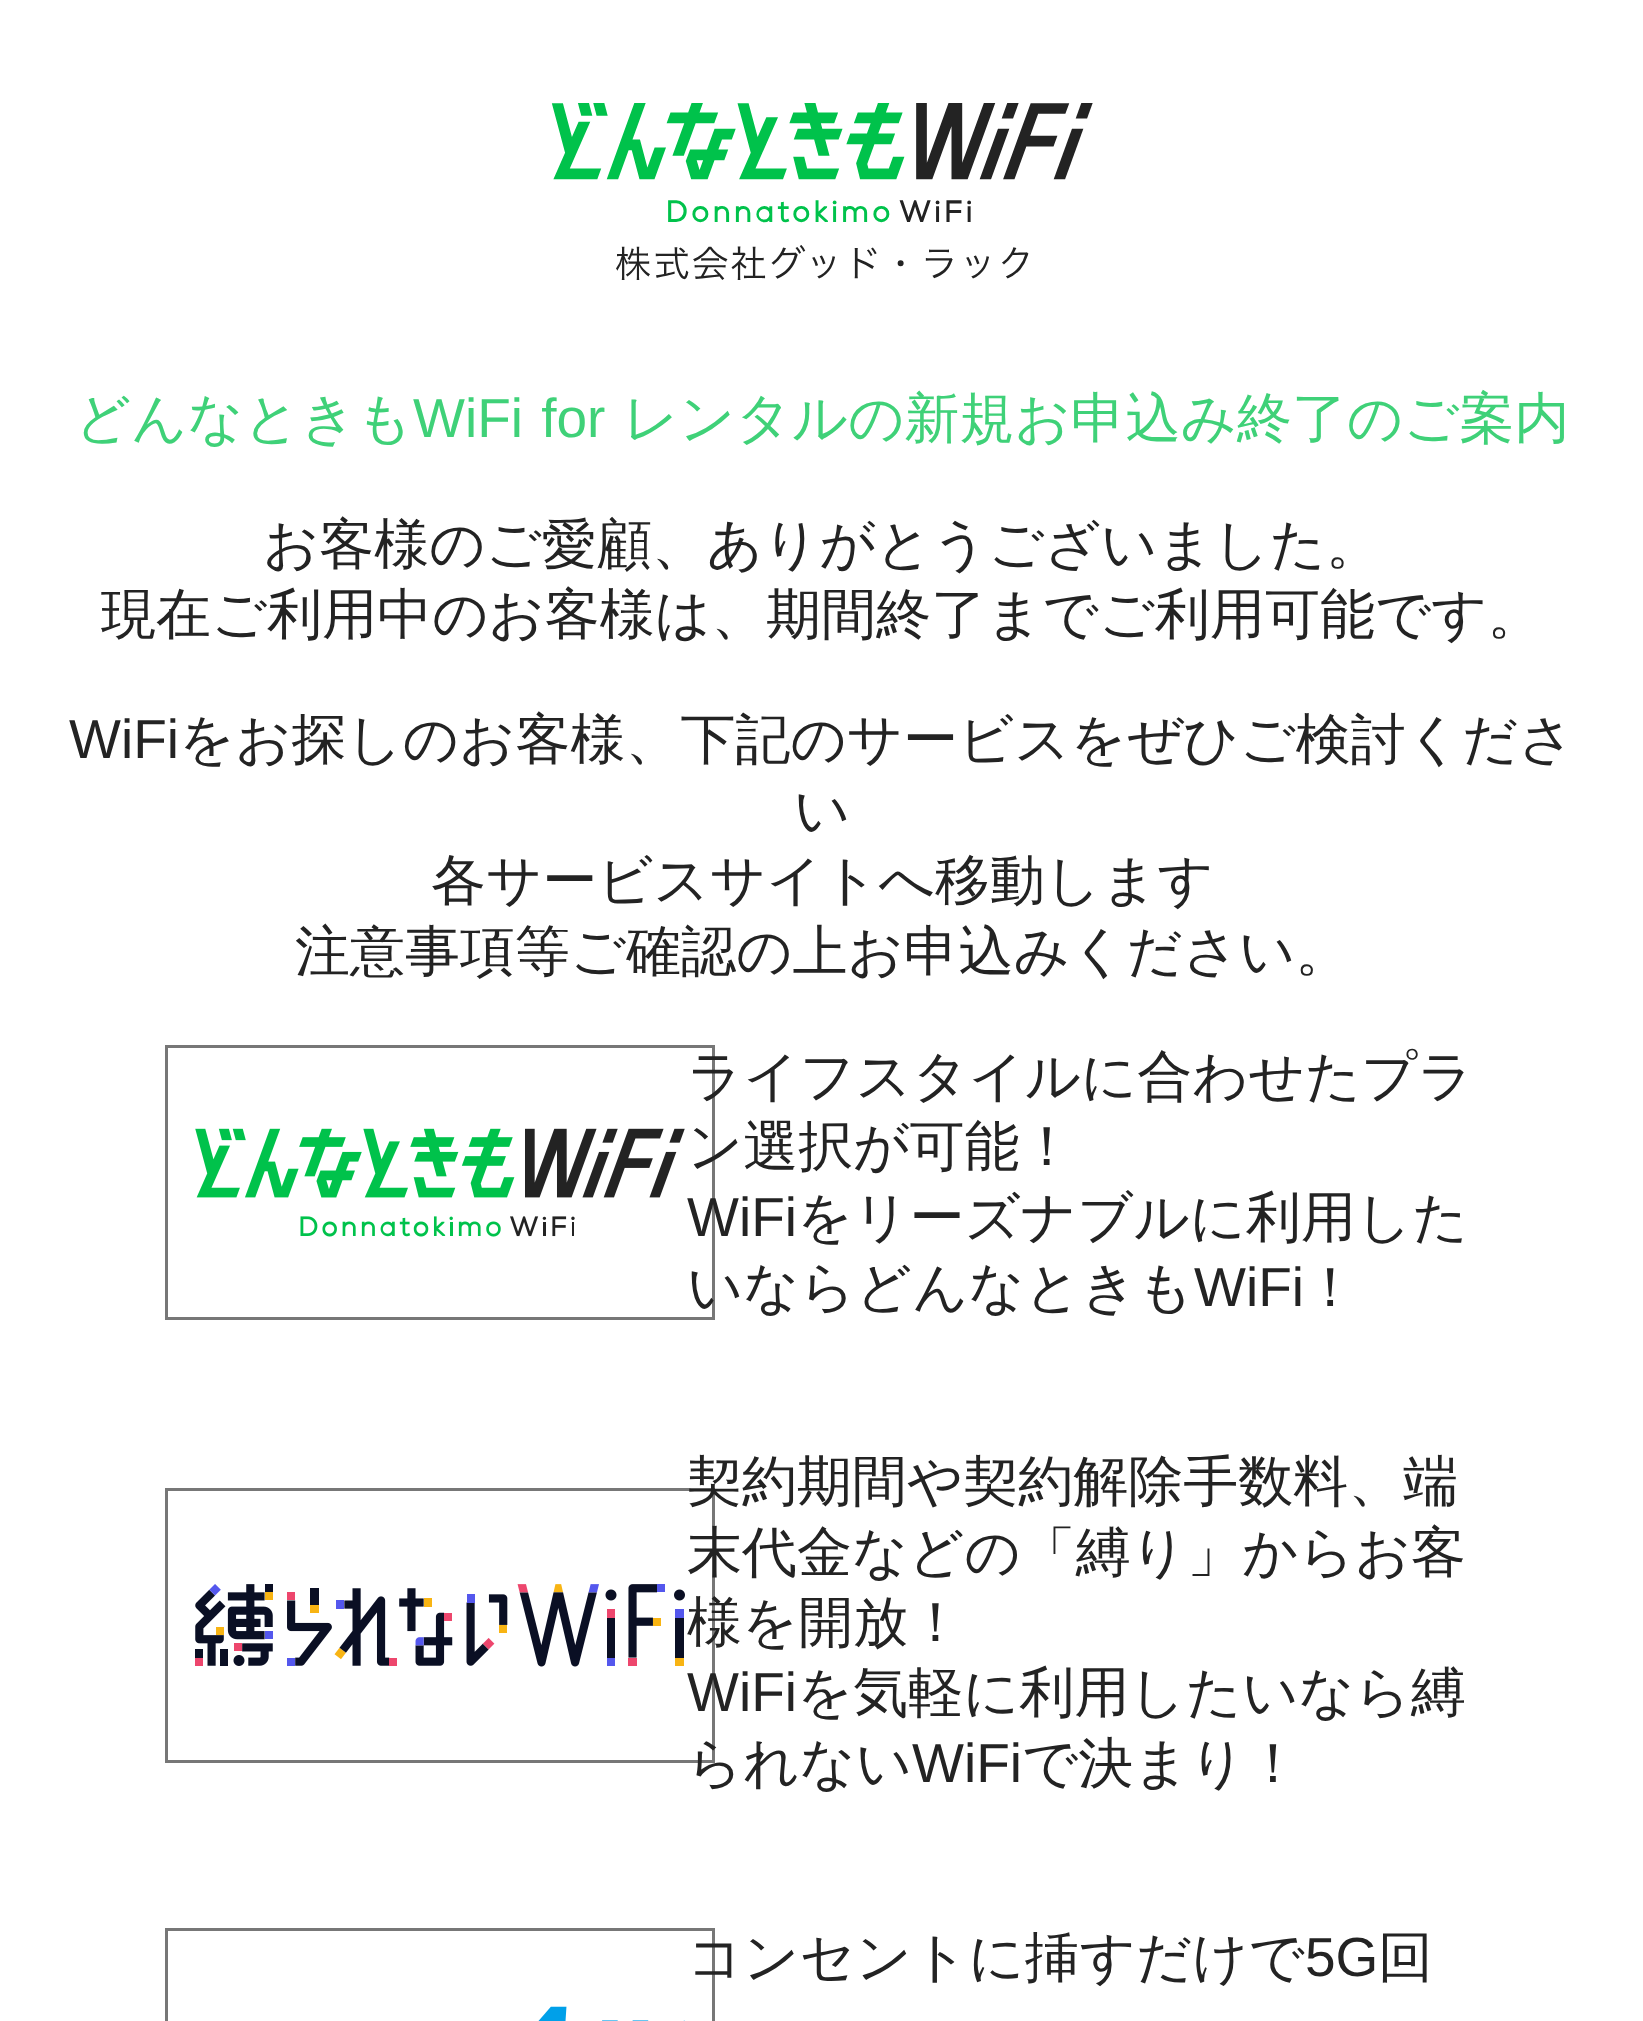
<svg xmlns="http://www.w3.org/2000/svg" width="1643" height="2021">
<rect width="100%" height="100%" fill="#fff"/>
<image x="551" y="103" width="542" height="177" href="media/1.png"/>
<text x="75" y="437" style="font-family:WenQuanYi Zen Hei;font-size:55px;font-weight:500;fill:#3fd178">どんなときも</text>
<text x="413" y="437" word-spacing="3" style="font-family:Liberation Sans;font-size:55px;fill:#3fd178">WiFi for</text>
<text x="623" y="437" style="font-family:WenQuanYi Zen Hei;font-size:55px;font-weight:500;fill:#3fd178">レンタルの新規お申込み終了のご案内</text>
<text x="263" y="563" style="font-family:WenQuanYi Zen Hei;font-size:55px;font-weight:500;fill:#232323">お客様のご愛顧、ありがとうございました。</text>
<text x="101" y="633" style="font-family:WenQuanYi Zen Hei;font-size:55px;font-weight:500;fill:#232323">現在ご利用中のお客様は、期間終了までご利用可能です。</text>
<text x="69" y="758" style="font-family:Liberation Sans;font-size:55px;fill:#232323">WiFi</text>
<text x="179" y="758" style="font-family:WenQuanYi Zen Hei;font-size:55px;font-weight:500;fill:#232323">をお探しのお客様、下記のサービスをぜひご検討くださ</text>
<text x="794" y="829" style="font-family:WenQuanYi Zen Hei;font-size:55px;font-weight:500;fill:#232323">い</text>
<text x="431" y="899" style="font-family:WenQuanYi Zen Hei;font-size:55px;font-weight:500;fill:#232323">各サービスサイトへ移動します</text>
<text x="295" y="970" style="font-family:WenQuanYi Zen Hei;font-size:55px;font-weight:500;fill:#232323">注意事項等ご確認の上お申込みください。</text>
<rect x="166.5" y="1046.5" width="547" height="272" fill="none" stroke="#777" stroke-width="3"/>
<image x="195" y="1128" width="490" height="109" href="media/2.png"/>
<text x="687" y="1095" style="font-family:WenQuanYi Zen Hei;font-size:55px;font-weight:500;fill:#232323">ライフスタイルに合わせたプラ</text>
<text x="687" y="1165" style="font-family:WenQuanYi Zen Hei;font-size:55px;font-weight:500;fill:#232323">ン選択が可能！</text>
<text x="687" y="1236" style="font-family:Liberation Sans;font-size:55px;fill:#232323">WiFi</text>
<text x="797" y="1236" style="font-family:WenQuanYi Zen Hei;font-size:55px;font-weight:500;fill:#232323">をリーズナブルに利用した</text>
<text x="687" y="1306" style="font-family:WenQuanYi Zen Hei;font-size:55px;font-weight:500;fill:#232323">いならどんなときも</text>
<text x="1194" y="1306" style="font-family:Liberation Sans;font-size:55px;fill:#232323">WiFi</text>
<text x="1303" y="1306" style="font-family:WenQuanYi Zen Hei;font-size:55px;font-weight:500;fill:#232323">！</text>
<rect x="166.5" y="1489.5" width="547" height="272" fill="none" stroke="#777" stroke-width="3"/>
<image x="195" y="1584" width="490" height="83" href="media/3.png"/>
<text x="687" y="1500" style="font-family:WenQuanYi Zen Hei;font-size:55px;font-weight:500;fill:#232323">契約期間や契約解除手数料、端</text>
<text x="687" y="1571" style="font-family:WenQuanYi Zen Hei;font-size:55px;font-weight:500;fill:#232323">末代金などの「縛り」からお客</text>
<text x="687" y="1641" style="font-family:WenQuanYi Zen Hei;font-size:55px;font-weight:500;fill:#232323">様を開放！</text>
<text x="687" y="1711" style="font-family:Liberation Sans;font-size:55px;fill:#232323">WiFi</text>
<text x="797" y="1711" style="font-family:WenQuanYi Zen Hei;font-size:55px;font-weight:500;fill:#232323">を気軽に利用したいなら縛</text>
<text x="687" y="1782" style="font-family:WenQuanYi Zen Hei;font-size:55px;font-weight:500;fill:#232323">られない</text>
<text x="912" y="1782" style="font-family:Liberation Sans;font-size:55px;fill:#232323">WiFi</text>
<text x="1022" y="1782" style="font-family:WenQuanYi Zen Hei;font-size:55px;font-weight:500;fill:#232323">で決まり！</text>
<rect x="166.5" y="1929.5" width="547" height="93" fill="none" stroke="#777" stroke-width="3"/>
<image x="538" y="2006" width="147" height="15" href="media/4.png"/>
<text x="687" y="1976" style="font-family:WenQuanYi Zen Hei;font-size:55px;font-weight:500;fill:#232323">コンセントに挿すだけで</text>
<text x="1305" y="1976" style="font-family:Liberation Sans;font-size:55px;fill:#232323">5G</text>
<text x="1378" y="1976" style="font-family:WenQuanYi Zen Hei;font-size:55px;font-weight:500;fill:#232323">回</text>
</svg>
